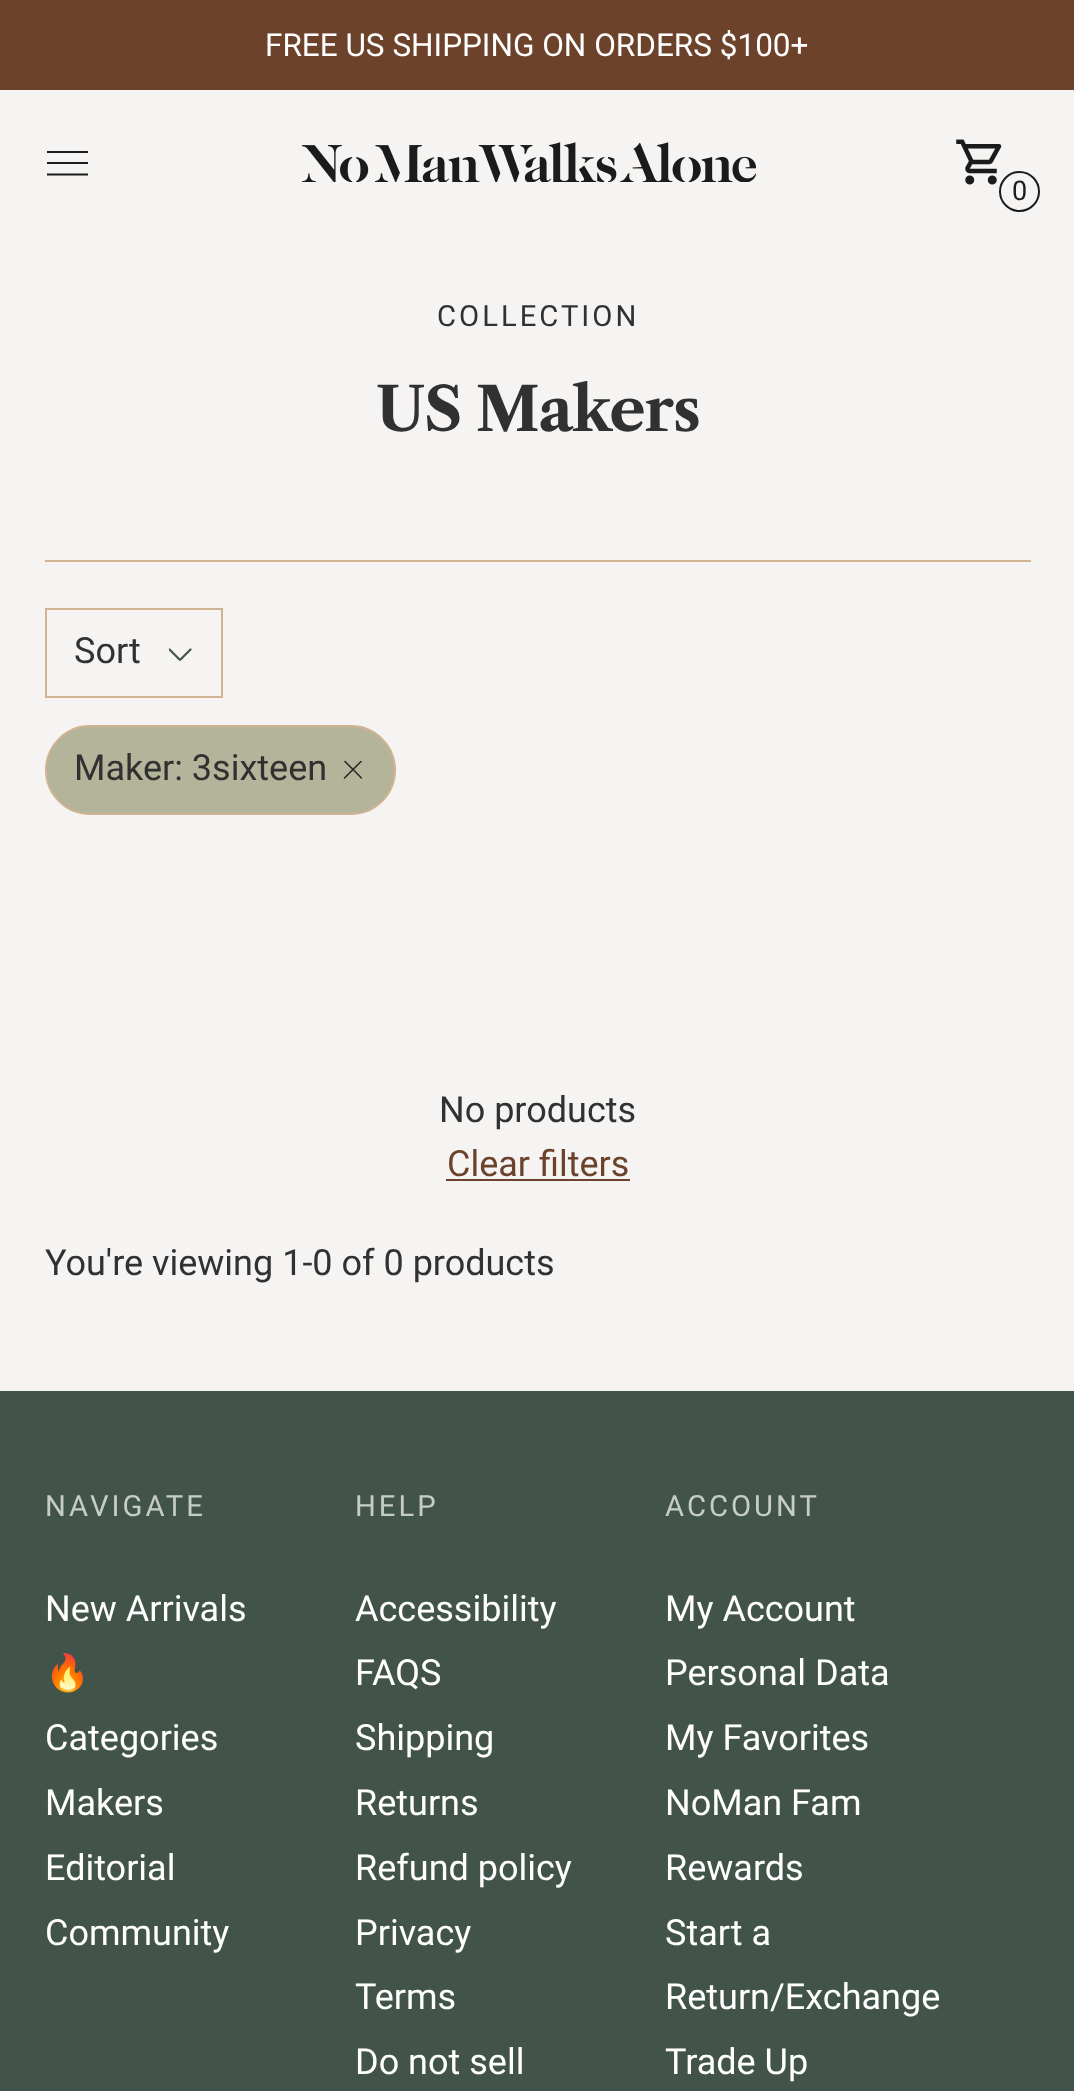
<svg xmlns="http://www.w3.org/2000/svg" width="1074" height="2091">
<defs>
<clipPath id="clip1"><rect x="169" y="644" width="25" height="24"/></clipPath>
<clipPath id="clip2"><rect x="342" y="761" width="20" height="20"/></clipPath>
</defs>
<rect width="100%" height="100%" fill="#f5f4f3"/>
<rect width="1074" height="90" fill="#6c422a"/>
<text x="265" y="56" style="font-family:Roboto;font-size:31.5px;fill:#fff">FREE US SHIPPING ON ORDERS $100+</text>
<path d="M47 152h41m-41 11h41m-41 11.5h41" fill="none" stroke="#1b1b1b" stroke-width="2.2"/>
<image x="302" y="142" width="454" height="40" href="media/1.png"/>
<image x="956" y="139" width="46" height="46" href="media/2.png"/>
<circle cx="1019.5" cy="191.5" r="19.5" fill="none" stroke="#1b1b1b" stroke-width="2"/>
<text x="1012" y="200" style="font-family:Roboto;font-size:27px;fill:#1b1b1b">0</text>
<text x="437" y="326" style="font-family:Roboto;font-size:29.25px;letter-spacing:3px;fill:#313131">COLLECTION</text>
<text x="376" y="431" style="font-family:Libre Caslon Text;font-size:60.75px;font-weight:bold;letter-spacing:-1.25px;fill:#313131">US Makers</text>
<rect x="45" y="560" width="986" height="2" fill="#d0b390"/>
<rect x="46" y="609" width="176" height="88" fill="none" stroke="#d0b390" stroke-width="2"/>
<text x="74" y="663" style="font-family:Roboto;font-size:36px;fill:#313131">Sort</text>
<g clip-path="url(#clip1)">
<path d="M169.5 649.5l8.5 8.5c2.5 2.5 1.5 2.5 4 0l8.5-8.5" fill="none" stroke="#42544a" stroke-width="2.2" stroke-linecap="round" stroke-linejoin="round"/>
</g>
<rect x="46" y="726" width="349" height="88" rx="44" fill="#b3b499" stroke="#d0b390" stroke-width="2"/>
<text x="74" y="780" style="font-family:Roboto;font-size:36px;fill:#313131">Maker: 3sixteen</text>
<g clip-path="url(#clip2)">
<path d="M361.5 761l-17 17m0-17l17 17" fill="none" stroke="#202924" stroke-width="1.5" stroke-linecap="round" stroke-linejoin="round"/>
</g>
<text x="439" y="1122" style="font-family:Roboto;font-size:36px;fill:#313131">No products</text>
<text x="447" y="1176" style="font-family:Roboto;font-size:36px;fill:#6c422a">Clear filters</text>
<rect x="446" y="1179" width="184" height="2" fill="#6c422a"/>
<text x="45" y="1275" style="font-family:Roboto;font-size:36px;fill:#313131">You're viewing 1-0 of 0 products</text>
<rect y="1391" width="1074" height="700" fill="#42544a"/>
<text x="45" y="1516" style="font-family:Roboto;font-size:29.25px;letter-spacing:3px;fill:#c6ccc9">NAVIGATE</text>
<text x="45" y="1621" style="font-family:Roboto;font-size:36px;fill:#fff">New Arrivals</text>
<text x="45" y="1685" style="font-family:Noto Color Emoji;font-size:36px;fill:#fff">🔥</text>
<text x="45" y="1750" style="font-family:Roboto;font-size:36px;fill:#fff">Categories</text>
<text x="45" y="1815" style="font-family:Roboto;font-size:36px;fill:#fff">Makers</text>
<text x="45" y="1880" style="font-family:Roboto;font-size:36px;fill:#fff">Editorial</text>
<text x="45" y="1945" style="font-family:Roboto;font-size:36px;fill:#fff">Community</text>
<text x="355" y="1516" style="font-family:Roboto;font-size:29.25px;letter-spacing:3px;fill:#c6ccc9">HELP</text>
<text x="355" y="1621" style="font-family:Roboto;font-size:36px;fill:#fff">Accessibility</text>
<text x="355" y="1685" style="font-family:Roboto;font-size:36px;fill:#fff">FAQS</text>
<text x="355" y="1750" style="font-family:Roboto;font-size:36px;fill:#fff">Shipping</text>
<text x="355" y="1815" style="font-family:Roboto;font-size:36px;fill:#fff">Returns</text>
<text x="355" y="1880" style="font-family:Roboto;font-size:36px;fill:#fff">Refund policy</text>
<text x="355" y="1945" style="font-family:Roboto;font-size:36px;fill:#fff">Privacy</text>
<text x="355" y="2009" style="font-family:Roboto;font-size:36px;fill:#fff">Terms</text>
<text x="355" y="2074" style="font-family:Roboto;font-size:36px;fill:#fff">Do not sell</text>
<text x="665" y="1516" style="font-family:Roboto;font-size:29.25px;letter-spacing:3px;fill:#c6ccc9">ACCOUNT</text>
<text x="665" y="1621" style="font-family:Roboto;font-size:36px;fill:#fff">My Account</text>
<text x="665" y="1685" style="font-family:Roboto;font-size:36px;fill:#fff">Personal Data</text>
<text x="665" y="1750" style="font-family:Roboto;font-size:36px;fill:#fff">My Favorites</text>
<text x="665" y="1815" style="font-family:Roboto;font-size:36px;fill:#fff">NoMan Fam</text>
<text x="665" y="1880" style="font-family:Roboto;font-size:36px;fill:#fff">Rewards</text>
<text x="665" y="1945" style="font-family:Roboto;font-size:36px;fill:#fff">Start a</text>
<text x="665" y="2009" style="font-family:Roboto;font-size:36px;fill:#fff">Return/Exchange</text>
<text x="665" y="2074" style="font-family:Roboto;font-size:36px;fill:#fff">Trade Up</text>
</svg>
